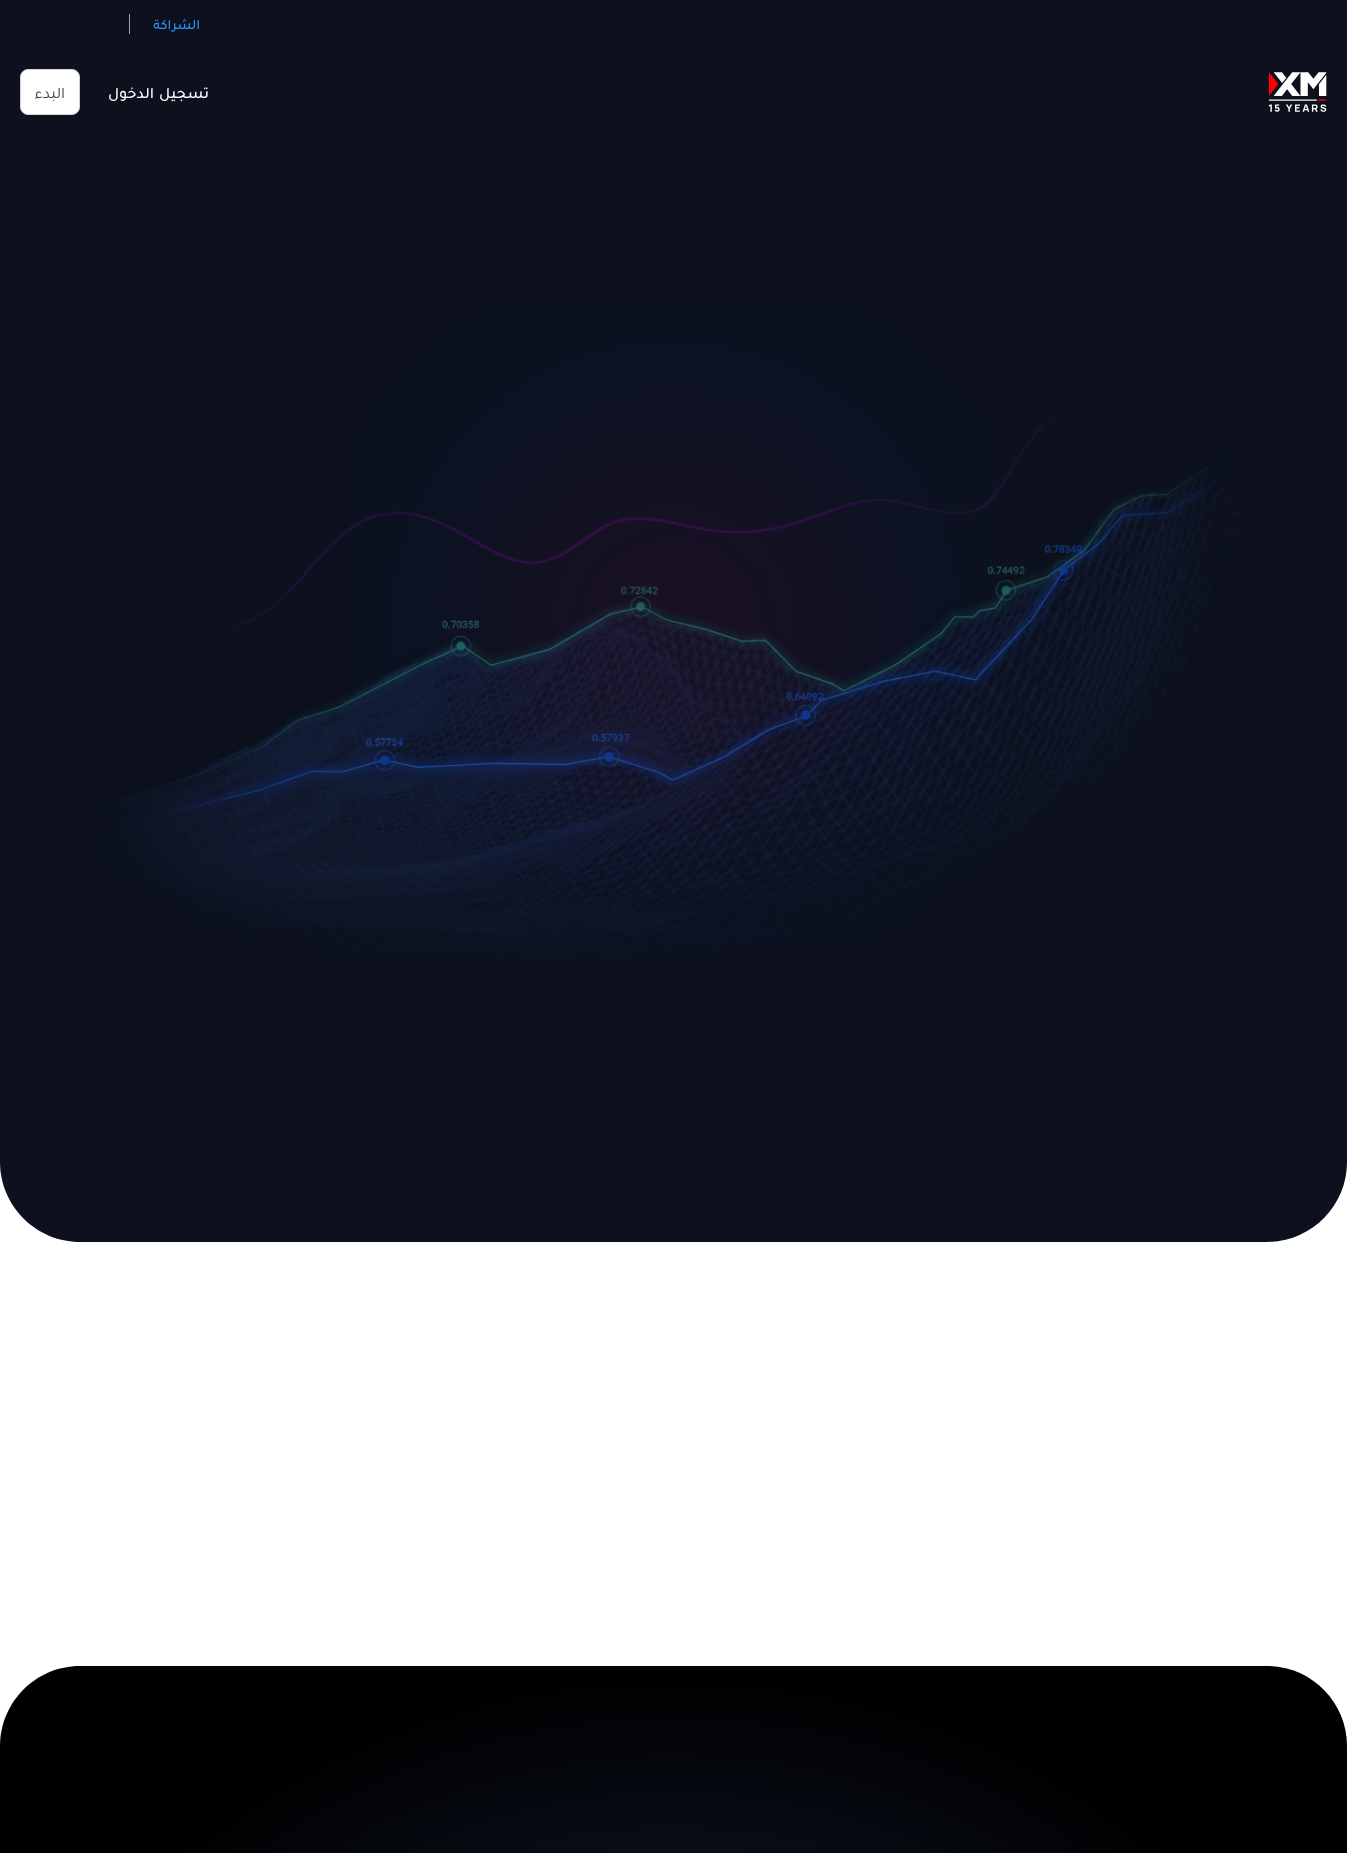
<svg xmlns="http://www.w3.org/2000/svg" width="1347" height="1853">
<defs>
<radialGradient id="g1" gradientUnits="userSpaceOnUse" cx="674" cy="627" r="750"><stop offset="0.1" stop-color="#171122"/><stop offset="0.34" stop-color="#0c1222"/><stop offset="0.52" stop-color="#0c111d"/></radialGradient>
<radialGradient id="g2" gradientUnits="userSpaceOnUse" cx="0" cy="0" r="1" gradientTransform="matrix(674 0 0 556 674 2222)"><stop offset="0" stop-color="#172543"/><stop offset="1" stop-color="#000"/></radialGradient>
</defs>
<rect width="100%" height="100%" fill="#fff"/>
<rect width="1347" height="136" fill="#0c111d"/>
<rect x="129" y="14" width="1" height="20" fill="#98a2b3"/>
<text x="200" y="29" style="font-family:Tajawal;font-size:14px;font-weight:500;direction:rtl;fill:#2e90fa">الشراكة</text>
<image x="1269" y="72" width="58" height="40" href="media/1.png"/>
<text x="209" y="98" style="font-family:Tajawal;font-size:16px;font-weight:500;direction:rtl;fill:#fff">تسجيل</text>
<text x="154" y="98" style="font-family:Tajawal;font-size:16px;font-weight:500;direction:rtl;fill:#fff">الدخول</text>
<rect x="20.5" y="69.5" width="59" height="45" rx="7.5" fill="#fff" stroke="#d0d5dd"/>
<text x="65" y="98" style="font-family:Tajawal;font-size:16px;direction:rtl;fill:#344054">البدء</text>
<path d="M0 136h1347v1026c0 44-36 80-80 80h-1187c-44 0-80-36-80-80z" fill="#0c111d"/>
<rect x="350" y="303" width="648" height="648" fill="url(#g1)"/>
<image x="70" y="474" width="1192" height="518" href="media/3.png"/>
<image x="100" y="416" width="1133" height="399" href="media/2.png"/>
<path d="M80 1666h1187c44 0 80 36 80 80v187h-1347v-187c0-44 36-80 80-80z" fill="url(#g2)"/>
</svg>
